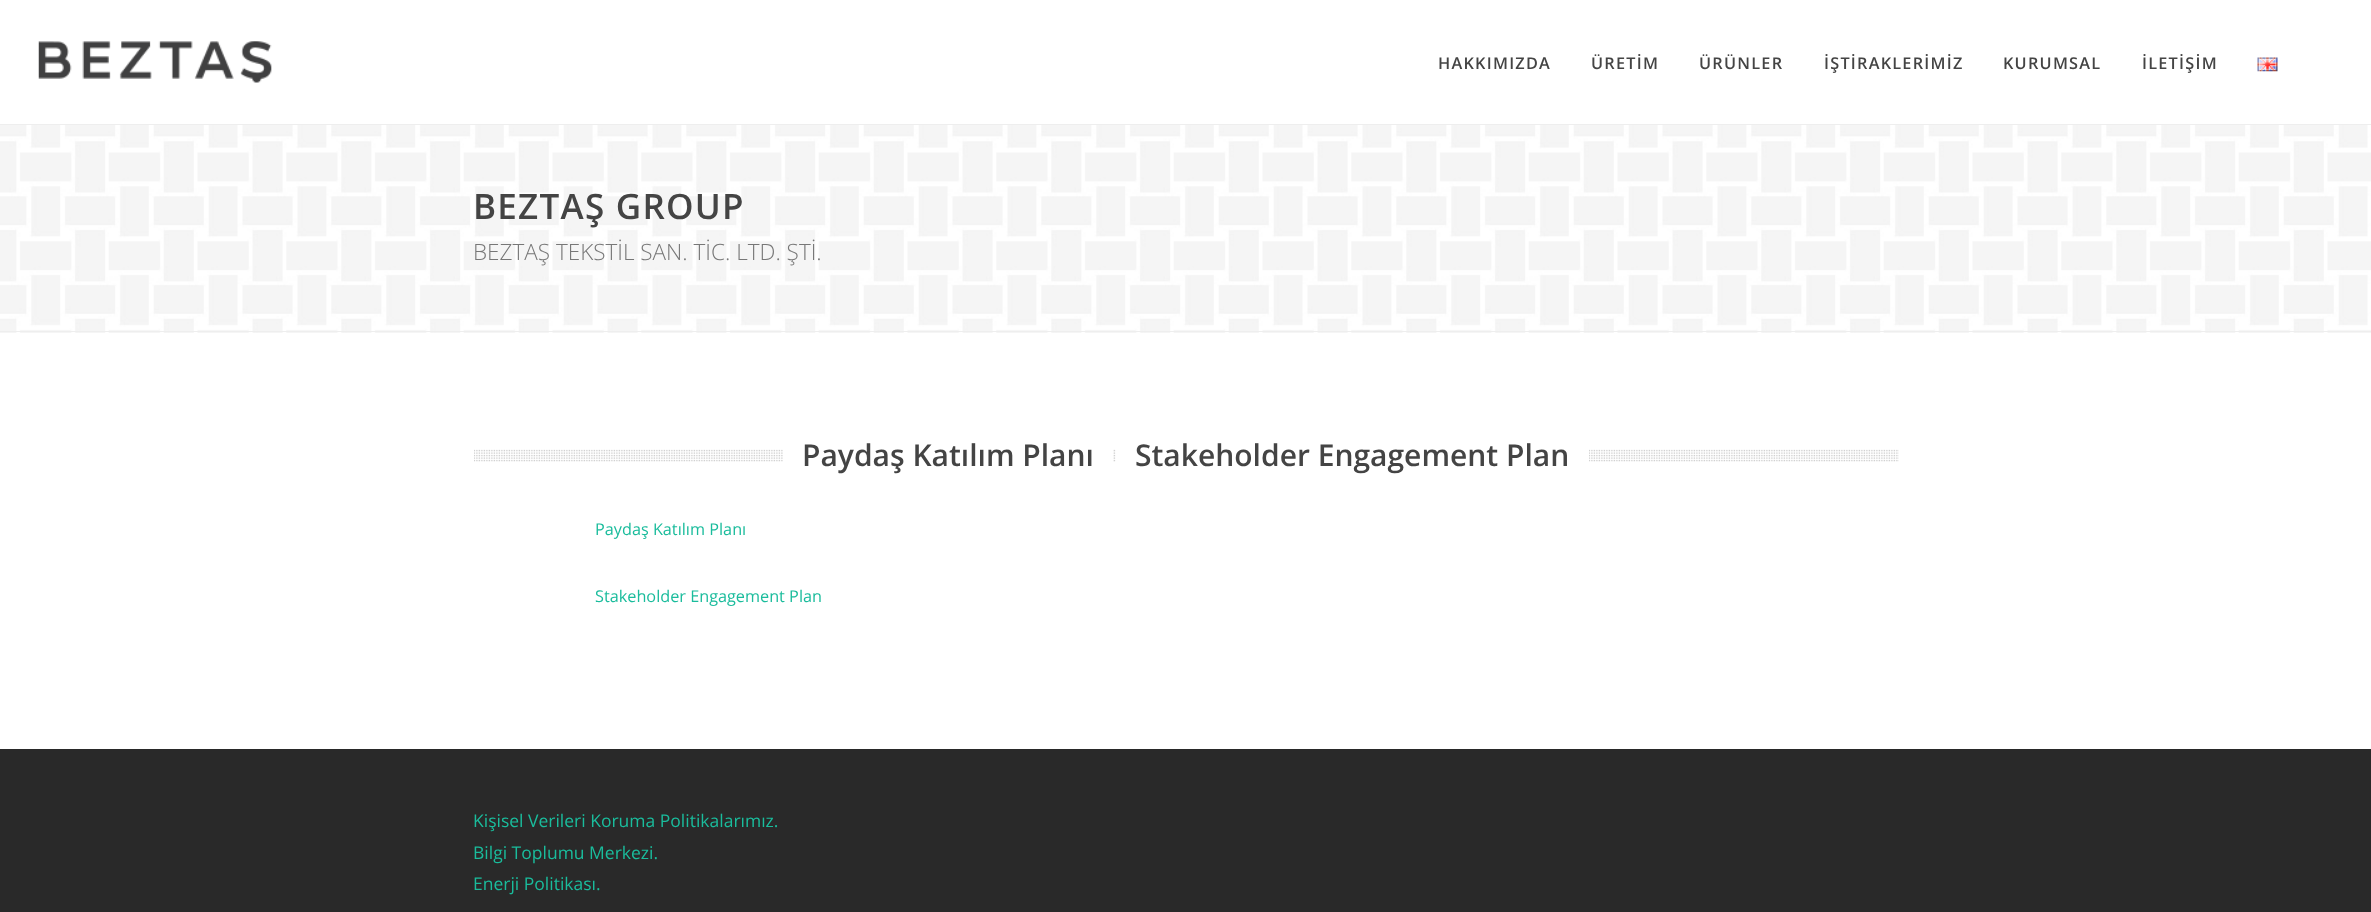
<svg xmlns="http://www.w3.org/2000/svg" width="2371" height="912">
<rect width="100%" height="100%" fill="#fff"/>
<rect y="124" width="2371" height="1" fill="#eee"/>
<image x="38" y="41" width="234" height="42" href="media/1.png"/>
<text x="1438" y="69" style="font-family:Open Sans;font-size:16.25px;font-weight:600;letter-spacing:1.25px;fill:#444">HAKKIMIZDA</text>
<text x="1591" y="69" style="font-family:Open Sans;font-size:16.25px;font-weight:600;letter-spacing:1.25px;fill:#444">ÜRETİM</text>
<text x="1699" y="69" style="font-family:Open Sans;font-size:16.25px;font-weight:600;letter-spacing:1.25px;fill:#444">ÜRÜNLER</text>
<text x="1824" y="69" style="font-family:Open Sans;font-size:16.25px;font-weight:600;letter-spacing:1.25px;fill:#444">İŞTİRAKLERİMİZ</text>
<text x="2003" y="69" style="font-family:Open Sans;font-size:16.25px;font-weight:600;letter-spacing:1.25px;fill:#444">KURUMSAL</text>
<text x="2142" y="69" style="font-family:Open Sans;font-size:16.25px;font-weight:600;letter-spacing:1.25px;fill:#444">İLETİŞİM</text>
<image x="2257" y="57" width="21" height="15" href="media/2.png"/>
<image x="0" y="125" width="2371" height="208" href="media/3.png"/>
<rect y="331" width="2371" height="1" fill="#eee"/>
<text x="473" y="219" style="font-family:Open Sans;font-size:35px;font-weight:600;letter-spacing:1.25px;fill:#444">BEZTAŞ GROUP</text>
<text x="473" y="260" style="font-family:Open Sans;font-size:22.5px;font-weight:300;fill:#777">BEZTAŞ TEKSTİL SAN. TİC. LTD. ŞTİ.</text>
<image x="474" y="449" width="1425" height="13" href="media/4.png"/>
<rect x="783" y="449" width="330" height="13" fill="#fff"/>
<text x="802" y="466" style="font-family:Open Sans;font-size:30px;font-weight:600;fill:#444">Paydaş Katılım Planı</text>
<rect x="1116" y="449" width="473" height="13" fill="#fff"/>
<text x="1135" y="466" style="font-family:Open Sans;font-size:30px;font-weight:600;fill:#444">Stakeholder Engagement Plan</text>
<text x="595" y="535" style="font-family:Open Sans;font-size:16.25px;fill:#1abc9c">Paydaş Katılım Planı</text>
<text x="595" y="602" style="font-family:Open Sans;font-size:16.25px;fill:#1abc9c">Stakeholder Engagement Plan</text>
<rect y="749" width="2371" height="163" fill="#292929"/>
<text x="473" y="827" style="font-family:Open Sans;font-size:17.5px;fill:#1abc9c">Kişisel Verileri Koruma Politikalarımız.</text>
<text x="473" y="859" style="font-family:Open Sans;font-size:17.5px;fill:#1abc9c">Bilgi Toplumu Merkezi.</text>
<text x="473" y="890" style="font-family:Open Sans;font-size:17.5px;fill:#1abc9c">Enerji Politikası.</text>
</svg>
